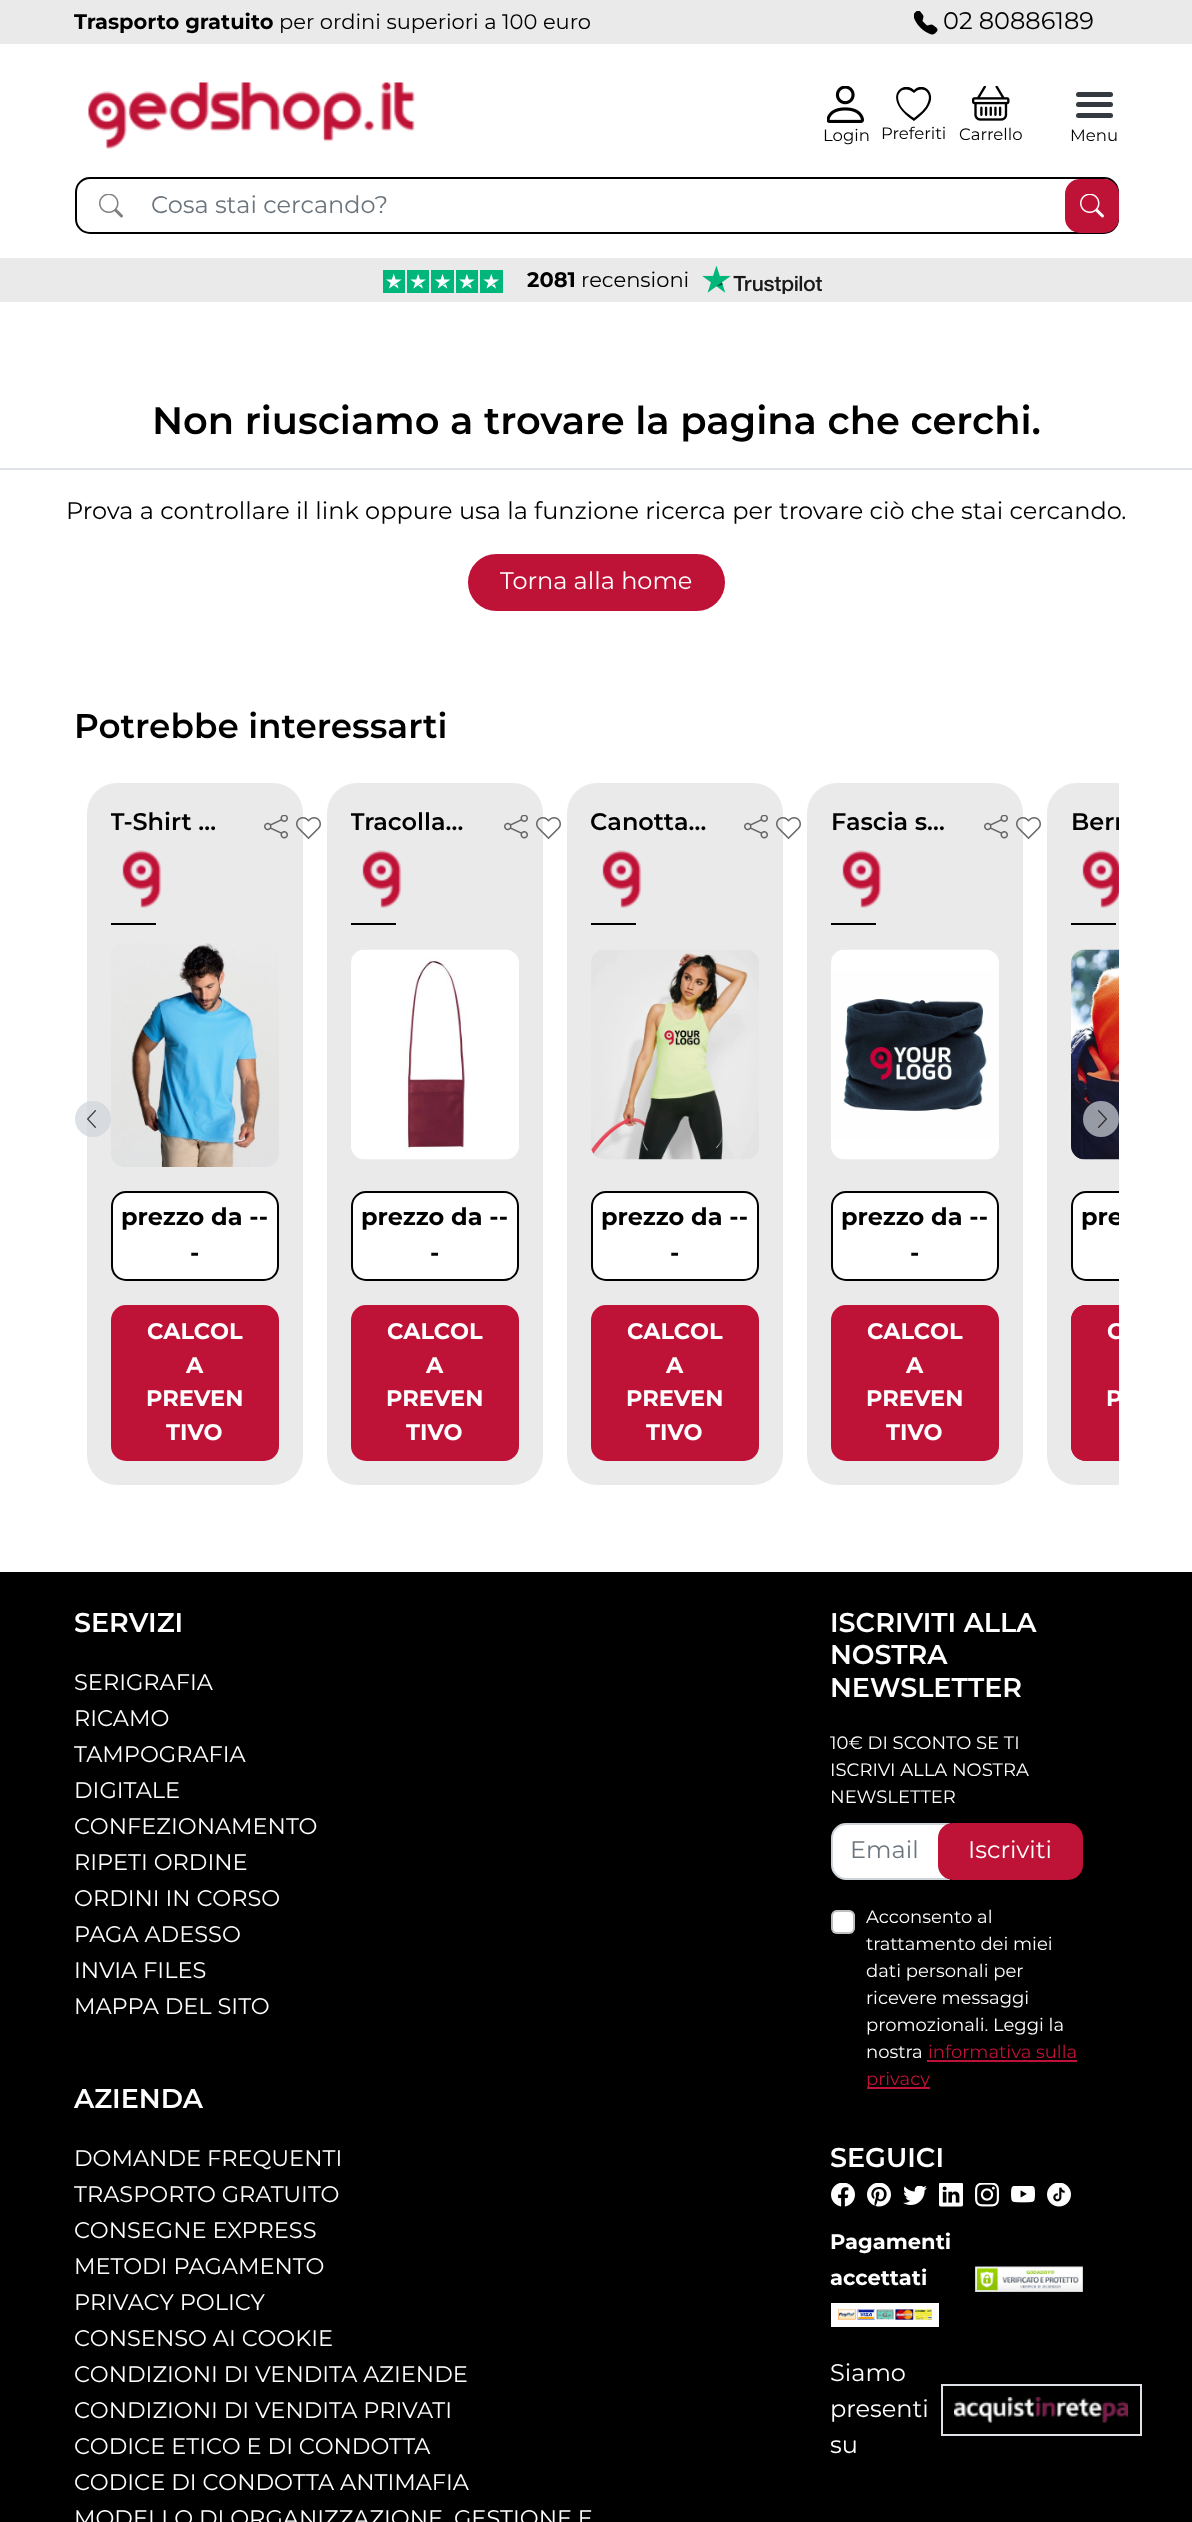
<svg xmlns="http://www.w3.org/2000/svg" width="1192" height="2522">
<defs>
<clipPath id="clip1"><rect x="896" y="87" width="36" height="35"/></clipPath>
<clipPath id="clip2"><rect x="111" y="807" width="117" height="29"/></clipPath>
<clipPath id="clip3"><rect x="351" y="807" width="117" height="29"/></clipPath>
<clipPath id="clip4"><rect x="1071" y="807" width="48" height="29"/></clipPath>
<clipPath id="clip5"><rect x="75" y="747" width="1044" height="744"/></clipPath>
</defs>
<rect width="100%" height="100%" fill="#fff"/>
<rect width="1192" height="44" fill="#ebeaea"/>
<text x="74" y="29" style="font-family:Montserrat;font-size:21px;font-weight:bold;fill:#000">Trasporto gratuito</text>
<text x="279" y="29" style="font-family:Montserrat;font-size:21px;fill:#000">per ordini superiori a 100 euro</text>
<image x="914" y="11" width="24" height="24" href="media/1.png"/>
<text x="943" y="29" style="font-family:Montserrat;font-size:24px;fill:#000">02 80886189</text>
<image x="88" y="82" width="327" height="67" href="media/2.png"/>
<image x="827" y="86" width="37" height="37" href="media/3.png"/>
<text x="823" y="141" style="font-family:Montserrat;font-size:16.5px;fill:#000">Login</text>
<g clip-path="url(#clip1)">
<path d="M914 93c-9-8-19-1-15 9c2 7 9 12 15 16c5-4 12-9 14-16c4-10-6-17-14-9zm0 28c-34-23-11-42 0-31c10-11 33 8 0 31z" fill="#000"/>
</g>
<text x="881" y="139" style="font-family:Montserrat;font-size:16.5px;fill:#000">Preferiti</text>
<image x="972" y="86" width="38" height="35" href="media/4.png"/>
<text x="959" y="140" style="font-family:Montserrat;font-size:16.5px;fill:#000">Carrello</text>
<rect x="1076" y="92" width="37" height="5" rx="2.5" fill="#343a40"/>
<rect x="1076" y="102" width="37" height="5" rx="2.5" fill="#343a40"/>
<rect x="1076" y="113" width="37" height="5" rx="2.5" fill="#343a40"/>
<text x="1070" y="141" style="font-family:Montserrat;font-size:16.5px;fill:#000">Menu</text>
<image x="99" y="194" width="24" height="24" href="media/5.png"/>
<rect x="76" y="178" width="1042" height="55" rx="14" fill="none" stroke="#000" stroke-width="2"/>
<text x="151" y="213" style="font-family:Montserrat;font-size:24px;fill:#6c757d">Cosa stai cercando?</text>
<rect x="1065" y="179" width="54" height="54" rx="15" fill="#bf1237"/>
<image x="1080" y="194" width="24" height="24" href="media/6.png"/>
<rect y="258" width="1192" height="44" fill="#ebeaea"/>
<image x="383" y="270" width="120" height="23" href="media/7.png"/>
<text x="527" y="287" style="font-family:Montserrat;font-size:21px;font-weight:bold;fill:#000">2081</text>
<text x="581" y="287" style="font-family:Montserrat;font-size:21px;fill:#000">recensioni</text>
<image x="702" y="266" width="120" height="28" href="media/8.png"/>
<rect y="468" width="1192" height="2" fill="#dee2e6"/>
<text x="152" y="434" style="font-family:Montserrat;font-size:38.4px;font-weight:600;fill:#000">Non riusciamo a trovare la pagina che cerchi.</text>
<text x="66" y="519" style="font-family:Montserrat;font-size:24px;fill:#000">Prova a controllare il link oppure usa la funzione ricerca per trovare ciò che stai cercando.</text>
<rect x="469" y="555" width="255" height="55" rx="27.5" fill="#bf1237" stroke="#bf1237" stroke-width="2"/>
<text x="500" y="589" style="font-family:Montserrat;font-size:24px;fill:#fff">Torna alla home</text>
<text x="74" y="738" style="font-family:Montserrat;font-size:34.25px;font-weight:600;fill:#000">Potrebbe interessarti</text>
<rect x="87" y="783" width="216" height="702" rx="30" fill="#ebeaea"/>
<circle cx="93" cy="1119" r="18" fill="#ced4dab3"/>
<image x="87" y="1110" width="9" height="18" href="media/9.png"/>
<g clip-path="url(#clip2)">
<text x="110" y="830" style="font-family:Montserrat;font-size:24px;font-weight:600;fill:#000">T-Shirt …</text>
</g>
<image x="122" y="850" width="40" height="58" href="media/10.png"/>
<rect x="111" y="923" width="45" height="2" fill="#000"/>
<image x="264" y="815" width="24" height="24" href="media/11.png"/>
<image x="296" y="817" width="25" height="22" href="media/12.png"/>
<image x="111" y="943" width="168" height="224" href="media/13.png"/>
<rect x="112" y="1192" width="166" height="88" rx="14" fill="#fff" stroke="#000" stroke-width="2"/>
<text x="121" y="1225" style="font-family:Montserrat;font-size:24px;font-weight:bold;fill:#000">prezzo da --</text>
<text x="190" y="1261" style="font-family:Montserrat;font-size:24px;font-weight:bold;fill:#000">-</text>
<rect x="112" y="1306" width="166" height="154" rx="14" fill="#bf1237" stroke="#bf1237" stroke-width="2"/>
<text x="147" y="1339" style="font-family:Montserrat;font-size:22.5px;font-weight:bold;fill:#fff">CALCOL</text>
<text x="186" y="1373" style="font-family:Montserrat;font-size:22.5px;font-weight:bold;fill:#fff">A</text>
<text x="146" y="1406" style="font-family:Montserrat;font-size:22.5px;font-weight:bold;fill:#fff">PREVEN</text>
<text x="166" y="1440" style="font-family:Montserrat;font-size:22.5px;font-weight:bold;fill:#fff">TIVO</text>
<rect x="327" y="783" width="216" height="702" rx="30" fill="#ebeaea"/>
<g clip-path="url(#clip3)">
<text x="350" y="830" style="font-family:Montserrat;font-size:24px;font-weight:600;fill:#000">Tracolla…</text>
</g>
<image x="362" y="850" width="40" height="58" href="media/14.png"/>
<rect x="351" y="923" width="45" height="2" fill="#000"/>
<image x="504" y="815" width="24" height="24" href="media/11.png"/>
<image x="536" y="817" width="25" height="22" href="media/12.png"/>
<image x="351" y="949" width="168" height="211" href="media/15.png"/>
<rect x="352" y="1192" width="166" height="88" rx="14" fill="#fff" stroke="#000" stroke-width="2"/>
<text x="361" y="1225" style="font-family:Montserrat;font-size:24px;font-weight:bold;fill:#000">prezzo da --</text>
<text x="430" y="1261" style="font-family:Montserrat;font-size:24px;font-weight:bold;fill:#000">-</text>
<rect x="352" y="1306" width="166" height="154" rx="14" fill="#bf1237" stroke="#bf1237" stroke-width="2"/>
<text x="387" y="1339" style="font-family:Montserrat;font-size:22.5px;font-weight:bold;fill:#fff">CALCOL</text>
<text x="426" y="1373" style="font-family:Montserrat;font-size:22.5px;font-weight:bold;fill:#fff">A</text>
<text x="386" y="1406" style="font-family:Montserrat;font-size:22.5px;font-weight:bold;fill:#fff">PREVEN</text>
<text x="406" y="1440" style="font-family:Montserrat;font-size:22.5px;font-weight:bold;fill:#fff">TIVO</text>
<rect x="567" y="783" width="216" height="702" rx="30" fill="#ebeaea"/>
<text x="590" y="830" style="font-family:Montserrat;font-size:24px;font-weight:600;fill:#000">Canotta…</text>
<image x="602" y="850" width="40" height="58" href="media/14.png"/>
<rect x="591" y="923" width="45" height="2" fill="#000"/>
<image x="744" y="815" width="24" height="24" href="media/11.png"/>
<image x="776" y="817" width="25" height="22" href="media/12.png"/>
<image x="591" y="950" width="168" height="210" href="media/16.png"/>
<rect x="592" y="1192" width="166" height="88" rx="14" fill="#fff" stroke="#000" stroke-width="2"/>
<text x="601" y="1225" style="font-family:Montserrat;font-size:24px;font-weight:bold;fill:#000">prezzo da --</text>
<text x="670" y="1261" style="font-family:Montserrat;font-size:24px;font-weight:bold;fill:#000">-</text>
<rect x="592" y="1306" width="166" height="154" rx="14" fill="#bf1237" stroke="#bf1237" stroke-width="2"/>
<text x="627" y="1339" style="font-family:Montserrat;font-size:22.5px;font-weight:bold;fill:#fff">CALCOL</text>
<text x="666" y="1373" style="font-family:Montserrat;font-size:22.5px;font-weight:bold;fill:#fff">A</text>
<text x="626" y="1406" style="font-family:Montserrat;font-size:22.5px;font-weight:bold;fill:#fff">PREVEN</text>
<text x="646" y="1440" style="font-family:Montserrat;font-size:22.5px;font-weight:bold;fill:#fff">TIVO</text>
<rect x="807" y="783" width="216" height="702" rx="30" fill="#ebeaea"/>
<text x="831" y="830" style="font-family:Montserrat;font-size:24px;font-weight:600;fill:#000">Fascia s…</text>
<image x="842" y="850" width="40" height="58" href="media/10.png"/>
<rect x="831" y="923" width="45" height="2" fill="#000"/>
<image x="984" y="815" width="24" height="24" href="media/11.png"/>
<image x="1016" y="817" width="25" height="22" href="media/12.png"/>
<image x="831" y="949" width="168" height="211" href="media/17.png"/>
<rect x="832" y="1192" width="166" height="88" rx="14" fill="#fff" stroke="#000" stroke-width="2"/>
<text x="841" y="1225" style="font-family:Montserrat;font-size:24px;font-weight:bold;fill:#000">prezzo da --</text>
<text x="910" y="1261" style="font-family:Montserrat;font-size:24px;font-weight:bold;fill:#000">-</text>
<rect x="832" y="1306" width="166" height="154" rx="14" fill="#bf1237" stroke="#bf1237" stroke-width="2"/>
<text x="867" y="1339" style="font-family:Montserrat;font-size:22.5px;font-weight:bold;fill:#fff">CALCOL</text>
<text x="906" y="1373" style="font-family:Montserrat;font-size:22.5px;font-weight:bold;fill:#fff">A</text>
<text x="866" y="1406" style="font-family:Montserrat;font-size:22.5px;font-weight:bold;fill:#fff">PREVEN</text>
<text x="886" y="1440" style="font-family:Montserrat;font-size:22.5px;font-weight:bold;fill:#fff">TIVO</text>
<path d="M1077 783h42v702h-42c-16.5 0-30-13.5-30-30v-642c0-16.5 13.5-30 30-30z" fill="#ebeaea"/>
<g clip-path="url(#clip4)">
<text x="1071" y="830" style="font-family:Montserrat;font-size:24px;font-weight:600;fill:#000">Berr</text>
</g>
<image x="1082" y="850" width="37" height="58" href="media/18.png"/>
<rect x="1071" y="923" width="45" height="2" fill="#000"/>
<image x="1071" y="949" width="48" height="211" href="media/19.png"/>
<path d="M1086 1191h33v90h-33c-8.5 0-15-6.5-15-15v-60c0-8.5 6.5-15 15-15z" fill="#fff"/>
<g clip-path="url(#clip5)">
<rect x="1072" y="1192" width="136" height="88" rx="14" fill="none" stroke="#000" stroke-width="2"/>
<text x="1081" y="1225" style="font-family:Montserrat;font-size:24px;font-weight:bold;fill:#000">pre</text>
</g>
<path d="M1086 1305h33v156h-33c-8.5 0-15-6.5-15-15v-126c0-8.5 6.5-15 15-15z" fill="#bf1237"/>
<g clip-path="url(#clip5)">
<rect x="1072" y="1306" width="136" height="154" rx="14" fill="none" stroke="#bf1237" stroke-width="2"/>
<text x="1107" y="1339" style="font-family:Montserrat;font-size:22.5px;font-weight:bold;fill:#fff">C</text>
<text x="1106" y="1406" style="font-family:Montserrat;font-size:22.5px;font-weight:bold;fill:#fff">P</text>
</g>
<circle cx="1101" cy="1119" r="18" fill="#ced4dab3"/>
<image x="1098" y="1110" width="9" height="18" href="media/20.png"/>
<rect y="1572" width="1192" height="950" fill="#000"/>
<text x="74" y="1632" style="font-family:Montserrat;font-size:27px;font-weight:600;fill:#fff">SERVIZI</text>
<text x="74" y="1690" style="font-family:Montserrat;font-size:22.5px;fill:#fff">SERIGRAFIA</text>
<text x="74" y="1726" style="font-family:Montserrat;font-size:22.5px;fill:#fff">RICAMO</text>
<text x="74" y="1762" style="font-family:Montserrat;font-size:22.5px;fill:#fff">TAMPOGRAFIA</text>
<text x="74" y="1798" style="font-family:Montserrat;font-size:22.5px;fill:#fff">DIGITALE</text>
<text x="74" y="1834" style="font-family:Montserrat;font-size:22.5px;fill:#fff">CONFEZIONAMENTO</text>
<text x="74" y="1870" style="font-family:Montserrat;font-size:22.5px;fill:#fff">RIPETI ORDINE</text>
<text x="74" y="1906" style="font-family:Montserrat;font-size:22.5px;fill:#fff">ORDINI IN CORSO</text>
<text x="74" y="1942" style="font-family:Montserrat;font-size:22.5px;fill:#fff">PAGA ADESSO</text>
<text x="74" y="1978" style="font-family:Montserrat;font-size:22.5px;fill:#fff">INVIA FILES</text>
<text x="74" y="2014" style="font-family:Montserrat;font-size:22.5px;fill:#fff">MAPPA DEL SITO</text>
<text x="74" y="2108" style="font-family:Montserrat;font-size:27px;font-weight:600;fill:#fff">AZIENDA</text>
<text x="74" y="2166" style="font-family:Montserrat;font-size:22.5px;fill:#fff">DOMANDE FREQUENTI</text>
<text x="74" y="2202" style="font-family:Montserrat;font-size:22.5px;fill:#fff">TRASPORTO GRATUITO</text>
<text x="74" y="2238" style="font-family:Montserrat;font-size:22.5px;fill:#fff">CONSEGNE EXPRESS</text>
<text x="74" y="2274" style="font-family:Montserrat;font-size:22.5px;fill:#fff">METODI PAGAMENTO</text>
<text x="74" y="2310" style="font-family:Montserrat;font-size:22.5px;fill:#fff">PRIVACY POLICY</text>
<text x="74" y="2346" style="font-family:Montserrat;font-size:22.5px;fill:#fff">CONSENSO AI COOKIE</text>
<text x="74" y="2382" style="font-family:Montserrat;font-size:22.5px;fill:#fff">CONDIZIONI DI VENDITA AZIENDE</text>
<text x="74" y="2418" style="font-family:Montserrat;font-size:22.5px;fill:#fff">CONDIZIONI DI VENDITA PRIVATI</text>
<text x="74" y="2454" style="font-family:Montserrat;font-size:22.5px;fill:#fff">CODICE ETICO E DI CONDOTTA</text>
<text x="74" y="2490" style="font-family:Montserrat;font-size:22.5px;fill:#fff">CODICE DI CONDOTTA ANTIMAFIA</text>
<text x="74" y="2526" style="font-family:Montserrat;font-size:22.5px;fill:#fff">MODELLO DI ORGANIZZAZIONE, GESTIONE E</text>
<text x="830" y="1632" style="font-family:Montserrat;font-size:27px;font-weight:600;fill:#fff">ISCRIVITI ALLA</text>
<text x="830" y="1664" style="font-family:Montserrat;font-size:27px;font-weight:600;fill:#fff">NOSTRA</text>
<text x="830" y="1697" style="font-family:Montserrat;font-size:27px;font-weight:600;fill:#fff">NEWSLETTER</text>
<text x="830" y="1749" style="font-family:Montserrat;font-size:18px;fill:#fff">10€ DI SCONTO SE TI</text>
<text x="830" y="1776" style="font-family:Montserrat;font-size:18px;fill:#fff">ISCRIVI ALLA NOSTRA</text>
<text x="830" y="1803" style="font-family:Montserrat;font-size:18px;fill:#fff">NEWSLETTER</text>
<path d="M846 1824h103v55h-103c-7.5 0-14-6.5-14-14v-27c0-7.5 6.5-14 14-14z" fill="#fff" stroke="#ced4da" stroke-width="2"/>
<text x="850" y="1858" style="font-family:Montserrat;font-size:24px;fill:#6c757d">Email</text>
<rect x="938" y="1823" width="145" height="57" rx="15" fill="#bf1237"/>
<text x="968" y="1858" style="font-family:Montserrat;font-size:24px;fill:#fff">Iscriviti</text>
<rect x="831" y="1910" width="24" height="24" rx="6" fill="#fff"/>
<rect x="832" y="1911" width="22" height="22" rx="5" fill="none" stroke="#00000040" stroke-width="2"/>
<text x="866" y="1923" style="font-family:Montserrat;font-size:18px;fill:#fff">Acconsento al</text>
<text x="866" y="1950" style="font-family:Montserrat;font-size:18px;fill:#fff">trattamento dei miei</text>
<text x="866" y="1977" style="font-family:Montserrat;font-size:18px;fill:#fff">dati personali per</text>
<text x="866" y="2004" style="font-family:Montserrat;font-size:18px;fill:#fff">ricevere messaggi</text>
<text x="866" y="2031" style="font-family:Montserrat;font-size:18px;fill:#fff">promozionali. Leggi la</text>
<text x="866" y="2058" style="font-family:Montserrat;font-size:18px;fill:#fff">nostra</text>
<text x="928" y="2058" style="font-family:Montserrat;font-size:18px;fill:#bf1237">informativa sulla</text>
<rect x="927" y="2060" width="150" height="2" fill="#bf1237"/>
<rect x="867" y="2087" width="63" height="2" fill="#bf1237"/>
<text x="866" y="2085" style="font-family:Montserrat;font-size:18px;fill:#bf1237">privacy</text>
<text x="830" y="2167" style="font-family:Montserrat;font-size:27px;font-weight:600;fill:#fff">SEGUICI</text>
<image x="831" y="2183" width="24" height="24" href="media/21.png"/>
<image x="867" y="2183" width="24" height="24" href="media/22.png"/>
<image x="903" y="2186" width="24" height="19" href="media/23.png"/>
<image x="939" y="2183" width="24" height="24" href="media/24.png"/>
<image x="975" y="2183" width="24" height="24" href="media/25.png"/>
<image x="1011" y="2186" width="24" height="17" href="media/26.png"/>
<image x="1047" y="2183" width="24" height="24" href="media/27.png"/>
<text x="830" y="2249" style="font-family:Montserrat;font-size:21px;font-weight:bold;fill:#fff">Pagamenti</text>
<text x="830" y="2285" style="font-family:Montserrat;font-size:21px;font-weight:bold;fill:#fff">accettati</text>
<rect x="831" y="2303" width="108" height="24" fill="#fff"/>
<image x="838" y="2309" width="95" height="11" href="media/28.png"/>
<image x="975" y="2266" width="108" height="26" href="media/29.png"/>
<text x="830" y="2381" style="font-family:Montserrat;font-size:24px;fill:#fff">Siamo</text>
<text x="830" y="2417" style="font-family:Montserrat;font-size:24px;fill:#fff">presenti</text>
<text x="830" y="2453" style="font-family:Montserrat;font-size:24px;fill:#fff">su</text>
<rect x="942" y="2385" width="199" height="50" fill="none" stroke="#dee2e6" stroke-width="2"/>
<image x="954" y="2397" width="174" height="26" href="media/30.png"/>
</svg>
